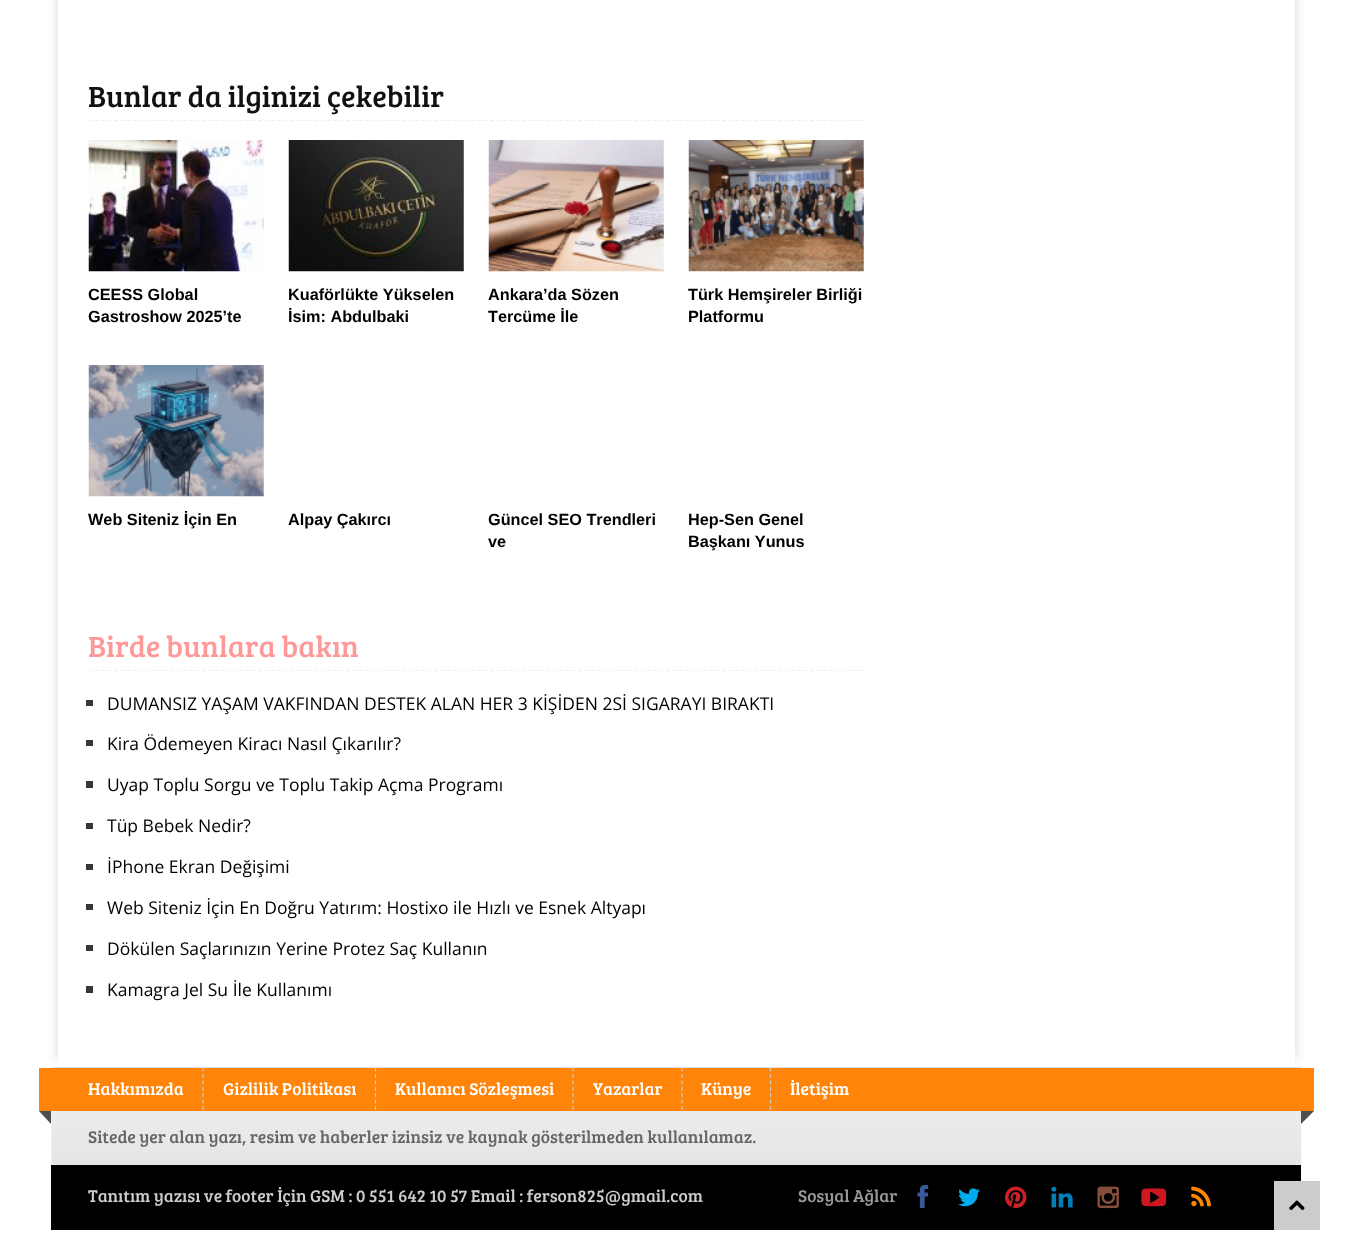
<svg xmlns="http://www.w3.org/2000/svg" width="1351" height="1248">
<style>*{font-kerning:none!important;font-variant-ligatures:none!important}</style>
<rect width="100%" height="100%" fill="#fff"/>
<rect x="59" y="-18" width="1220" height="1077" fill="#c0c0c0cc" filter="blur(6px)"/>
<rect x="74" y="-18" width="1220" height="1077" fill="#c0c0c0cc" filter="blur(6px)"/>
<rect x="58" width="1237" height="1068" fill="#fff"/>
<path d="M89 120.5h775" fill="none" stroke="#f0f0f0" stroke-width="1.2" stroke-dasharray="3.75 2.52"/>
<text x="88" y="107" style="font-family:Bree Serif;font-size:30px;fill:#111">Bunlar da ilginizi çekebilir</text>
<image x="88" y="140" width="176" height="132" href="media/1.png"/>
<text x="88" y="300" style="font-family:Liberation Sans;font-size:16.25px;font-weight:bold;fill:#000">CEESS Global</text>
<text x="88" y="322" style="font-family:Liberation Sans;font-size:16.25px;font-weight:bold;fill:#000">Gastroshow 2025’te</text>
<image x="288" y="140" width="176" height="132" href="media/2.png"/>
<text x="288" y="300" style="font-family:Liberation Sans;font-size:16.25px;font-weight:bold;fill:#000">Kuaförlükte Yükselen</text>
<text x="288" y="322" style="font-family:Liberation Sans;font-size:16.25px;font-weight:bold;fill:#000">İsim: Abdulbaki</text>
<image x="488" y="140" width="176" height="132" href="media/3.png"/>
<text x="488" y="300" style="font-family:Liberation Sans;font-size:16.25px;font-weight:bold;fill:#000">Ankara’da Sözen</text>
<text x="488" y="322" style="font-family:Liberation Sans;font-size:16.25px;font-weight:bold;fill:#000">Tercüme İle</text>
<image x="688" y="140" width="176" height="132" href="media/4.png"/>
<text x="688" y="300" style="font-family:Liberation Sans;font-size:16.25px;font-weight:bold;fill:#000">Türk Hemşireler Birliği</text>
<text x="688" y="322" style="font-family:Liberation Sans;font-size:16.25px;font-weight:bold;fill:#000">Platformu</text>
<image x="88" y="365" width="176" height="132" href="media/5.png"/>
<text x="88" y="525" style="font-family:Liberation Sans;font-size:16.25px;font-weight:bold;fill:#000">Web Siteniz İçin En</text>
<text x="288" y="525" style="font-family:Liberation Sans;font-size:16.25px;font-weight:bold;fill:#000">Alpay Çakırcı</text>
<text x="488" y="525" style="font-family:Liberation Sans;font-size:16.25px;font-weight:bold;fill:#000">Güncel SEO Trendleri</text>
<text x="488" y="547" style="font-family:Liberation Sans;font-size:16.25px;font-weight:bold;fill:#000">ve</text>
<text x="688" y="525" style="font-family:Liberation Sans;font-size:16.25px;font-weight:bold;fill:#000">Hep-Sen Genel</text>
<text x="688" y="547" style="font-family:Liberation Sans;font-size:16.25px;font-weight:bold;fill:#000">Başkanı Yunus</text>
<path d="M89 670.5h775" fill="none" stroke="#f0f0f0" stroke-width="1.2" stroke-dasharray="3.75 2.52"/>
<text x="88" y="657" style="font-family:Bree Serif;font-size:30px;fill:#f99">Birde bunlara bakın</text>
<rect x="86" y="700" width="7" height="6" fill="#373737"/>
<text x="107" y="710" style="font-family:Open Sans;font-size:17.5px;fill:#000">DUMANSIZ YAŞAM VAKFINDAN DESTEK ALAN HER 3 KİŞİDEN 2Sİ SIGARAYI BIRAKTI</text>
<rect x="86" y="740" width="7" height="6" fill="#373737"/>
<text x="107" y="750" style="font-family:Open Sans;font-size:17.5px;fill:#000">Kira Ödemeyen Kiracı Nasıl Çıkarılır?</text>
<rect x="86" y="781" width="7" height="7" fill="#373737"/>
<text x="107" y="791" style="font-family:Open Sans;font-size:17.5px;fill:#000">Uyap Toplu Sorgu ve Toplu Takip Açma Programı</text>
<rect x="86" y="823" width="7" height="6" fill="#373737"/>
<text x="107" y="832" style="font-family:Open Sans;font-size:17.5px;fill:#000">Tüp Bebek Nedir?</text>
<rect x="86" y="864" width="7" height="6" fill="#373737"/>
<text x="107" y="873" style="font-family:Open Sans;font-size:17.5px;fill:#000">İPhone Ekran Değişimi </text>
<rect x="86" y="904" width="7" height="6" fill="#373737"/>
<text x="107" y="914" style="font-family:Open Sans;font-size:17.5px;fill:#000">Web Siteniz İçin En Doğru Yatırım: Hostixo ile Hızlı ve Esnek Altyapı</text>
<rect x="86" y="945" width="7" height="6" fill="#373737"/>
<text x="107" y="955" style="font-family:Open Sans;font-size:17.5px;fill:#000">Dökülen Saçlarınızın Yerine Protez Saç Kullanın</text>
<rect x="86" y="986" width="7" height="7" fill="#373737"/>
<text x="107" y="996" style="font-family:Open Sans;font-size:17.5px;fill:#000">Kamagra Jel Su İle Kullanımı</text>
<image x="51" y="1067" width="1251" height="114" href="media/6.png"/>
<rect x="39" y="1068" width="1275" height="43" fill="#ff840a"/>
<path d="M203 1067.5v42.5" fill="none" stroke="#ccc" stroke-width="1.2" stroke-dasharray="3.75 2.71"/>
<text x="88" y="1095" style="font-family:Bree Serif;font-size:17.5px;fill:#fff">Hakkımızda</text>
<path d="M375.5 1067.5v42.5" fill="none" stroke="#ccc" stroke-width="1.2" stroke-dasharray="3.75 2.71"/>
<text x="223" y="1095" style="font-family:Bree Serif;font-size:17.5px;fill:#fff">Gizlilik Politikası</text>
<path d="M573 1067.5v42.5" fill="none" stroke="#ccc" stroke-width="1.2" stroke-dasharray="3.75 2.71"/>
<text x="395" y="1095" style="font-family:Bree Serif;font-size:17.5px;fill:#fff">Kullanıcı Sözleşmesi</text>
<path d="M682 1067.5v42.5" fill="none" stroke="#ccc" stroke-width="1.2" stroke-dasharray="3.75 2.71"/>
<text x="593" y="1095" style="font-family:Bree Serif;font-size:17.5px;fill:#fff">Yazarlar</text>
<path d="M770.5 1067.5v42.5" fill="none" stroke="#ccc" stroke-width="1.2" stroke-dasharray="3.75 2.71"/>
<text x="701" y="1095" style="font-family:Bree Serif;font-size:17.5px;fill:#fff">Künye</text>
<text x="790" y="1095" style="font-family:Bree Serif;font-size:17.5px;fill:#fff">İletişim</text>
<path d="M39 1111h12v13z" fill="#4e4e4e"/>
<path d="M1301 1111h13l-13 13z" fill="#4e4e4e"/>
<text x="88" y="1143" style="font-family:Bree Serif;font-size:17.5px;fill:#666">Sitede yer alan yazı, resim ve haberler izinsiz ve kaynak gösterilmeden kullanılamaz.</text>
<rect x="51" y="1165" width="1250" height="65" fill="#000"/>
<text x="88" y="1202" style="font-family:Bree Serif;font-size:17.5px;fill:#ccc">Tanıtım yazısı ve footer İçin GSM : 0 551 642 10 57 Email : ferson825@gmail.com</text>
<text x="798" y="1202" style="font-family:Bree Serif;font-size:17.5px;fill:#999">Sosyal Ağlar</text>
<image x="917" y="1185" width="12" height="24" href="media/7.png"/>
<image x="958" y="1188" width="22" height="19" href="media/8.png"/>
<image x="1005" y="1186" width="22" height="22" href="media/9.png"/>
<image x="1051" y="1186" width="22" height="22" href="media/10.png"/>
<image x="1097" y="1186" width="22" height="23" href="media/11.png"/>
<image x="1141" y="1188" width="26" height="19" href="media/12.png"/>
<image x="1191" y="1186" width="20" height="21" href="media/13.png"/>
<rect x="1274" y="1181" width="46" height="49" fill="#ccc"/>
<image x="1289" y="1200" width="16" height="11" href="media/14.png"/>
</svg>
